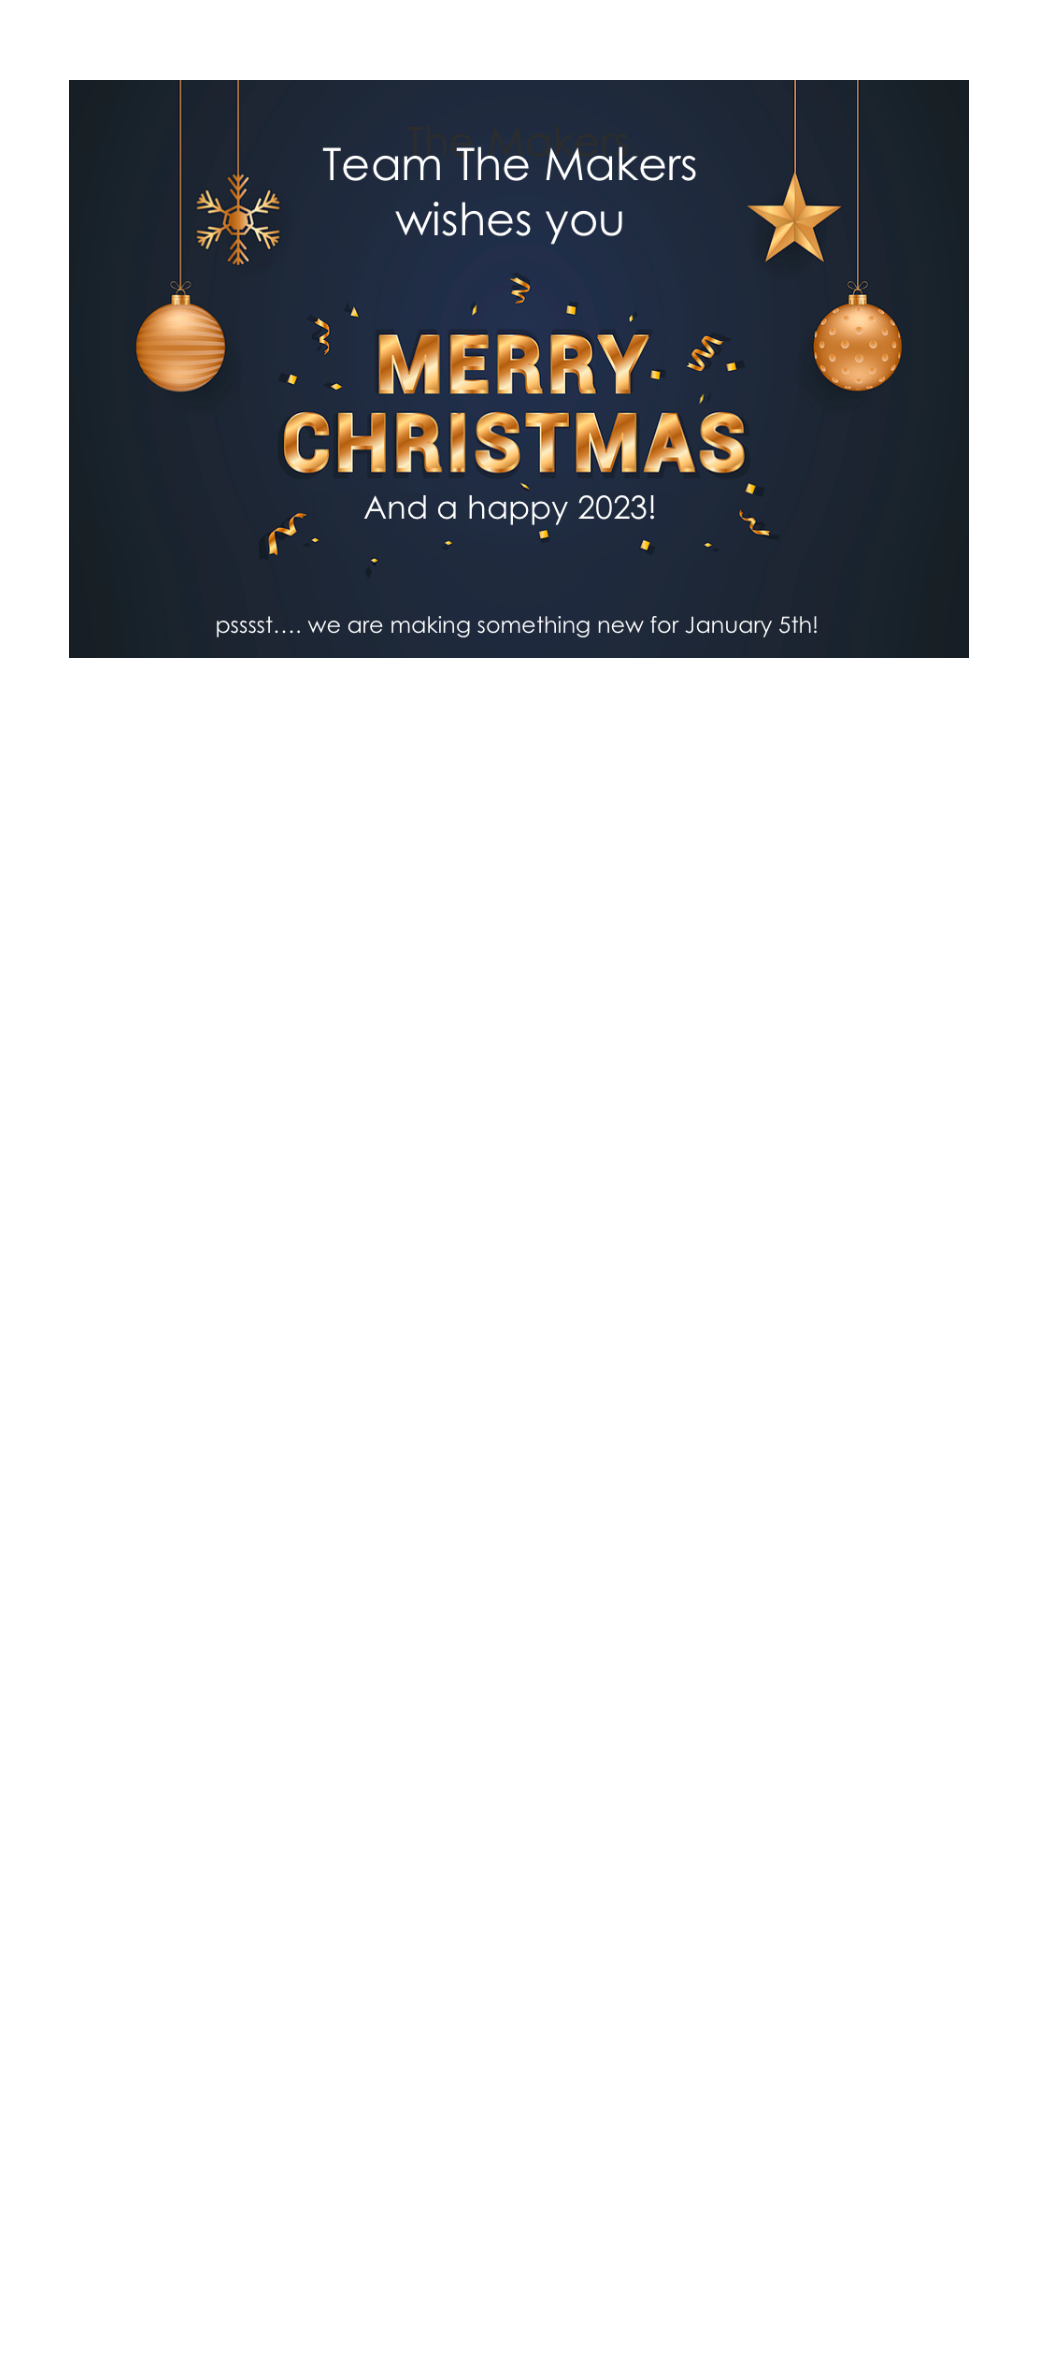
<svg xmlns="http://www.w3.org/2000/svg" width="1037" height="2368">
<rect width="100%" height="100%" fill="#fff"/>
<image x="69" y="80" width="900" height="578" href="media/1.png"/>
</svg>
